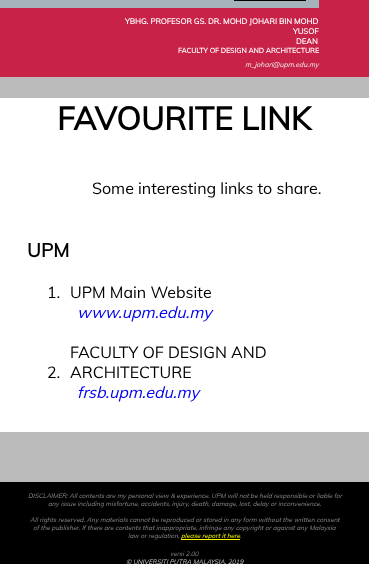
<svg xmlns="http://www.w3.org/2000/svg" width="369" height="564">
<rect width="100%" height="100%" fill="#bbb"/>
<rect width="319" height="8" fill="#a5b3bb"/>
<rect x="235" y="-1" width="70" height="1" fill="none" stroke="#000" stroke-width="2"/>
<rect y="8" width="369" height="69" fill="#c82249"/>
<text x="125" y="24" style="font-family:Muli;font-size:7.75px;font-weight:bold;fill:#fff">YBHG. PROFESOR GS. DR. MOHD JOHARI BIN MOHD</text>
<text x="293" y="34" style="font-family:Muli;font-size:7.75px;font-weight:bold;fill:#fff">YUSOF</text>
<text x="296" y="44" style="font-family:Muli;font-size:7.75px;font-weight:bold;fill:#fff">DEAN</text>
<text x="178" y="53" style="font-family:Muli;font-size:7px;font-weight:bold;fill:#fff">FACULTY OF DESIGN AND ARCHITECTURE</text>
<text x="245" y="67" style="font-family:Muli;font-size:7px;font-style:italic;fill:#eee">m_johari@upm.edu.my</text>
<rect y="98" width="369" height="334" fill="#fff"/>
<rect x="319" width="50" height="8" fill="#c82249"/>
<text x="57" y="130" style="font-family:Muli;font-size:32px;font-weight:bold;fill:#000">FAVOURITE LINK</text>
<text x="92" y="194" style="font-family:Muli;font-size:16px;fill:#000">Some interesting links to share.</text>
<text x="27" y="257" style="font-family:Muli;font-size:19px;font-weight:bold;fill:#000">UPM</text>
<text x="47" y="298" style="font-family:Muli;font-size:16px;fill:#000">1.</text>
<text x="70" y="298" style="font-family:Muli;font-size:16px;fill:#000">UPM Main Website</text>
<text x="77" y="318" style="font-family:Muli;font-size:16px;font-style:italic;fill:#00e">www.upm.edu.my</text>
<text x="47" y="378" style="font-family:Muli;font-size:16px;fill:#000">2.</text>
<text x="70" y="358" style="font-family:Muli;font-size:16px;fill:#000">FACULTY OF DESIGN AND</text>
<text x="70" y="378" style="font-family:Muli;font-size:16px;fill:#000">ARCHITECTURE</text>
<text x="77" y="398" style="font-family:Muli;font-size:16px;font-style:italic;fill:#00e">frsb.upm.edu.my</text>
<rect y="482" width="369" height="82" fill="#000"/>
<text x="28" y="498" style="font-family:Muli;font-size:6.4px;font-style:italic;fill:#888">DISCLAIMER: All contents are my personal view &amp; experience. UPM will not be held responsible or liable for</text>
<text x="48" y="506" style="font-family:Muli;font-size:6.4px;font-style:italic;fill:#888">any issue including misfortune, accidents, injury, death, damage, lost, delay or inconvenience.</text>
<text x="30" y="522" style="font-family:Muli;font-size:6.4px;font-style:italic;fill:#888">All rights reserved. Any materials cannot be reproduced or stored in any form without the written consent</text>
<text x="33" y="530" style="font-family:Muli;font-size:6.4px;font-style:italic;fill:#888">of the publisher. If there are contents that inappropriate, infringe any copyright or against any Malaysia</text>
<text x="128" y="538" style="font-family:Muli;font-size:6.4px;font-style:italic;fill:#888">law or regulation,</text>
<rect x="181" y="539" width="59" height="1" fill="#ff0"/>
<text x="181" y="538" style="font-family:Muli;font-size:6.4px;font-style:italic;fill:#ff0">please report it here</text>
<text x="240" y="538" style="font-family:Muli;font-size:6.4px;font-style:italic;fill:#888">.</text>
<text x="170" y="556" style="font-family:Muli;font-size:6.4px;font-style:italic;fill:#888">versi 2.00</text>
<text x="126" y="564" style="font-family:Muli;font-size:6.4px;font-style:italic;fill:#ccc">© UNIVERSITI PUTRA MALAYSIA, 2019</text>
</svg>
